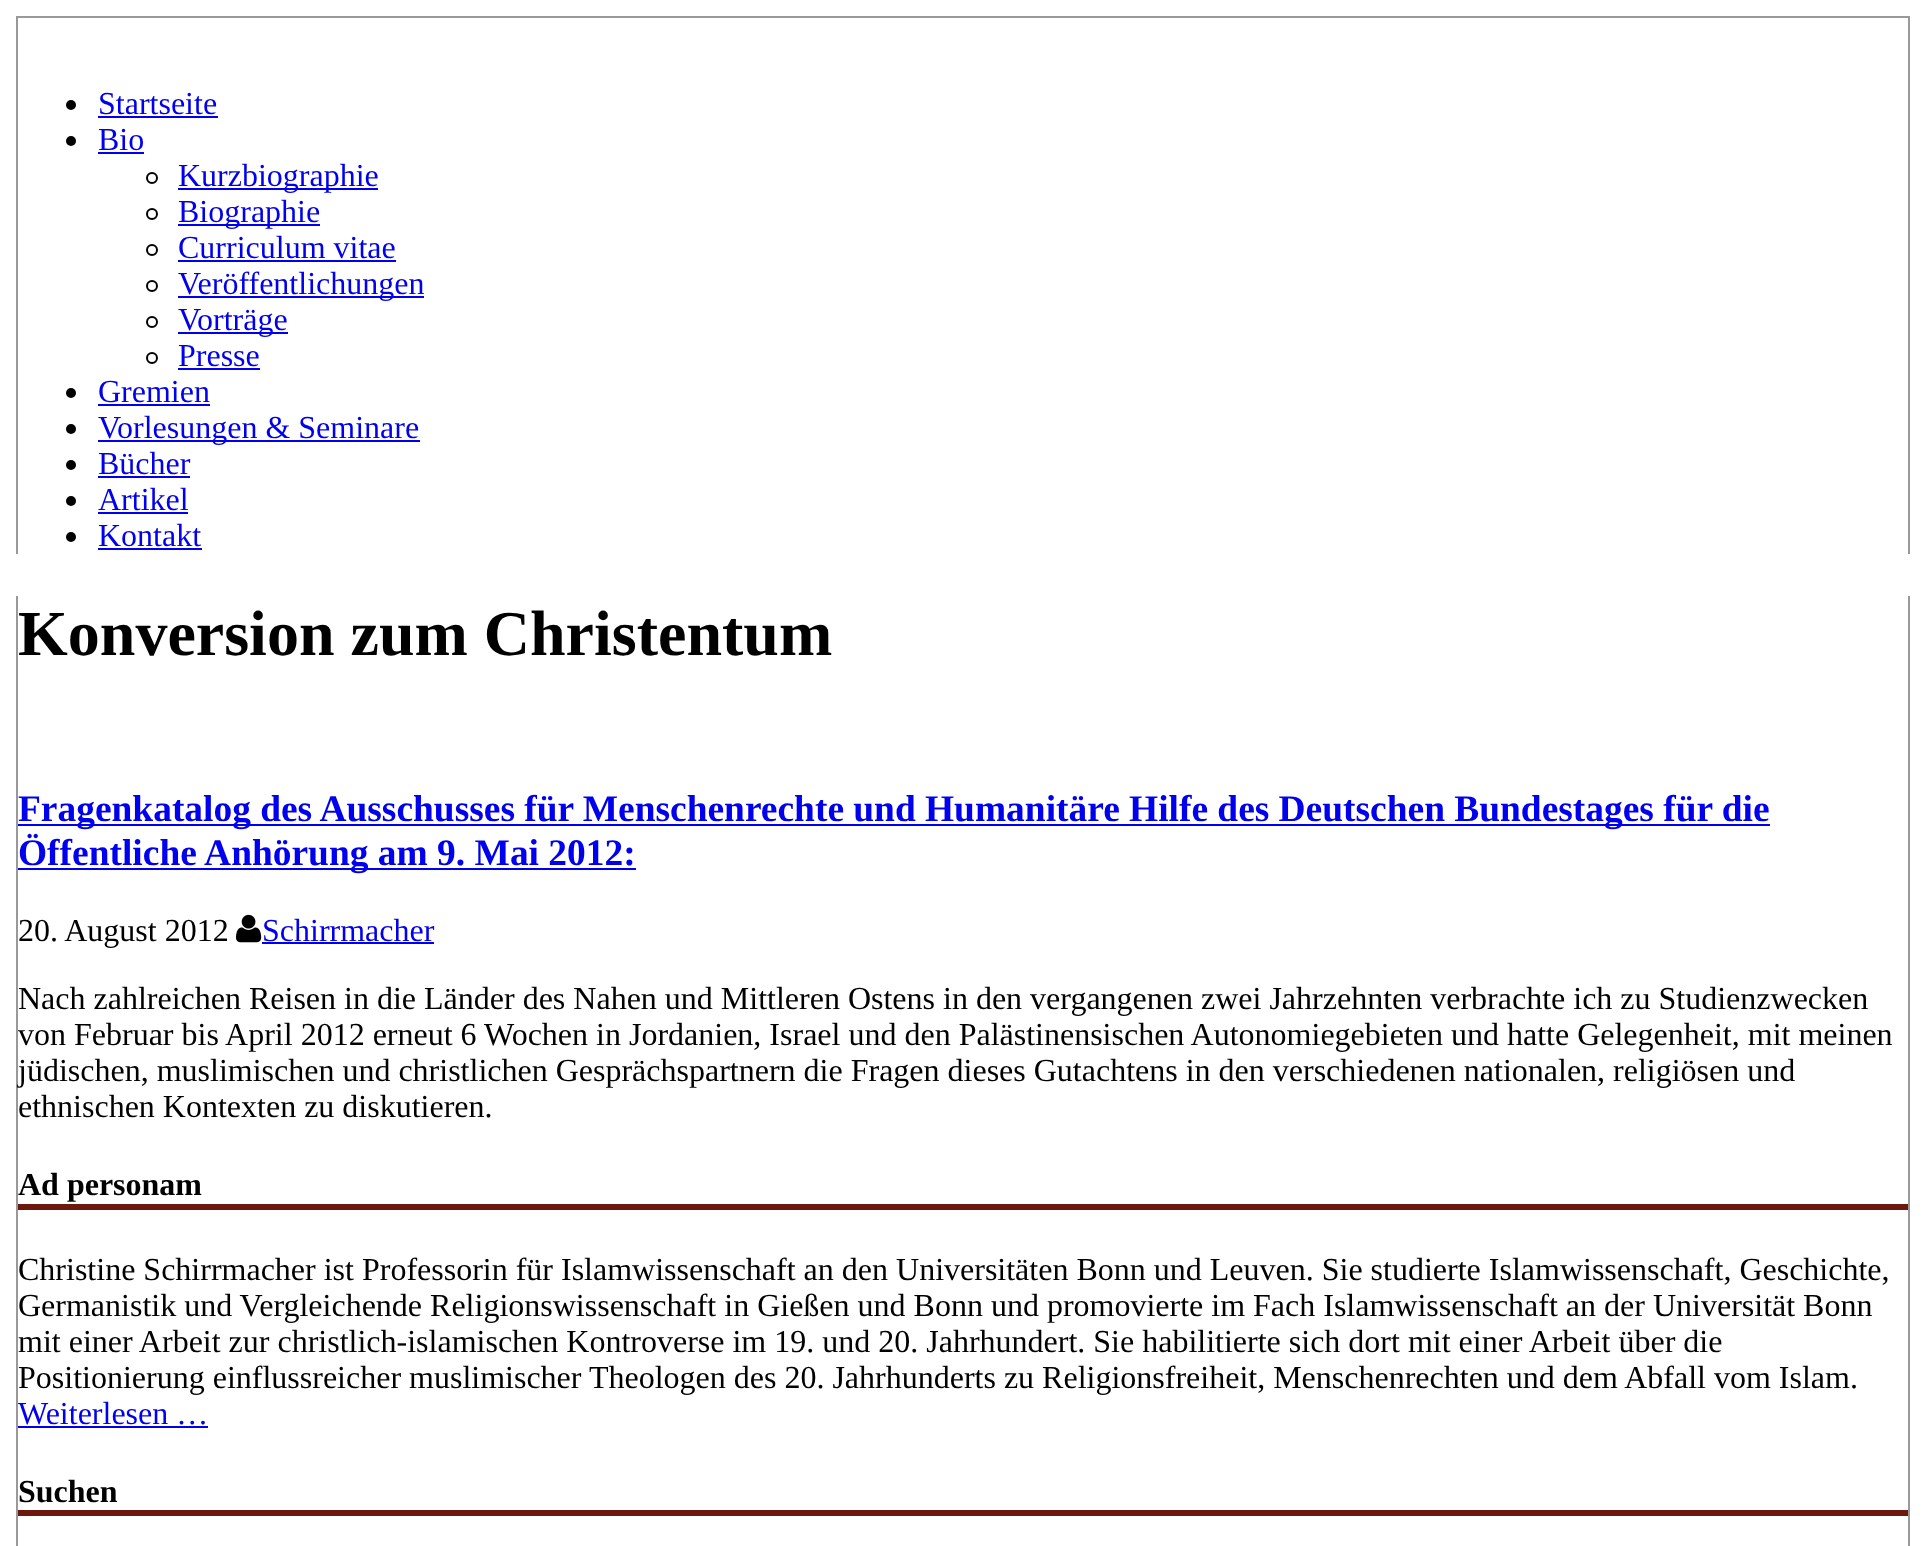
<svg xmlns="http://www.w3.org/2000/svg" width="1926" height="1546">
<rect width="100%" height="100%" fill="#fff"/>
<rect x="16" y="16" width="1894" height="2" fill="#999"/>
<rect x="1908" y="16" width="2" height="538" fill="#999"/>
<rect x="16" y="16" width="2" height="538" fill="#999"/>
<circle cx="71" cy="105" r="5" fill="#000"/>
<text x="98" y="114" style="font-family:Liberation Serif;font-size:32px;fill:#00e">Startseite</text>
<rect x="98" y="116" width="120" height="2" fill="#00e"/>
<circle cx="71" cy="141" r="5" fill="#000"/>
<text x="98" y="150" style="font-family:Liberation Serif;font-size:32px;fill:#00e">Bio</text>
<rect x="98" y="152" width="46" height="2" fill="#00e"/>
<circle cx="152" cy="178" r="5" fill="none" stroke="#000" stroke-width="2"/>
<rect x="178" y="188" width="200" height="2" fill="#00e"/>
<text x="178" y="186" style="font-family:Liberation Serif;font-size:32px;fill:#00e">Kurzbiographie</text>
<circle cx="152" cy="214" r="5" fill="none" stroke="#000" stroke-width="2"/>
<rect x="178" y="224" width="142" height="2" fill="#00e"/>
<text x="178" y="222" style="font-family:Liberation Serif;font-size:32px;fill:#00e">Biographie</text>
<circle cx="152" cy="250" r="5" fill="none" stroke="#000" stroke-width="2"/>
<text x="178" y="258" style="font-family:Liberation Serif;font-size:32px;fill:#00e">Curriculum vitae</text>
<rect x="178" y="260" width="218" height="2" fill="#00e"/>
<circle cx="152" cy="286" r="5" fill="none" stroke="#000" stroke-width="2"/>
<rect x="178" y="296" width="246" height="2" fill="#00e"/>
<text x="178" y="294" style="font-family:Liberation Serif;font-size:32px;fill:#00e">Veröffentlichungen</text>
<circle cx="152" cy="322" r="5" fill="none" stroke="#000" stroke-width="2"/>
<rect x="178" y="332" width="110" height="2" fill="#00e"/>
<text x="178" y="330" style="font-family:Liberation Serif;font-size:32px;fill:#00e">Vorträge</text>
<circle cx="152" cy="358" r="5" fill="none" stroke="#000" stroke-width="2"/>
<text x="178" y="366" style="font-family:Liberation Serif;font-size:32px;fill:#00e">Presse</text>
<rect x="178" y="368" width="82" height="2" fill="#00e"/>
<circle cx="71" cy="393" r="5" fill="#000"/>
<text x="98" y="402" style="font-family:Liberation Serif;font-size:32px;fill:#00e">Gremien</text>
<rect x="98" y="404" width="112" height="2" fill="#00e"/>
<circle cx="71" cy="429" r="5" fill="#000"/>
<rect x="98" y="440" width="322" height="2" fill="#00e"/>
<text x="98" y="438" style="font-family:Liberation Serif;font-size:32px;fill:#00e">Vorlesungen &amp; Seminare</text>
<circle cx="71" cy="465" r="5" fill="#000"/>
<text x="98" y="474" style="font-family:Liberation Serif;font-size:32px;fill:#00e">Bücher</text>
<rect x="98" y="476" width="92" height="2" fill="#00e"/>
<circle cx="71" cy="501" r="5" fill="#000"/>
<text x="98" y="510" style="font-family:Liberation Serif;font-size:32px;fill:#00e">Artikel</text>
<rect x="98" y="512" width="90" height="2" fill="#00e"/>
<circle cx="71" cy="537" r="5" fill="#000"/>
<text x="98" y="546" style="font-family:Liberation Serif;font-size:32px;fill:#00e">Kontakt</text>
<rect x="98" y="548" width="104" height="2" fill="#00e"/>
<rect x="1908" y="596" width="2" height="950" fill="#999"/>
<rect x="16" y="596" width="2" height="950" fill="#999"/>
<text x="18" y="655" style="font-family:Liberation Serif;font-size:64px;font-weight:bold;fill:#000">Konversion zum Christentum</text>
<rect x="18" y="824" width="1752" height="2" fill="#00e"/>
<text x="18" y="821" word-spacing="-0.1" style="font-family:Liberation Serif;font-size:37.45px;font-weight:bold;fill:#00e">Fragenkatalog des Ausschusses für Menschenrechte und Humanitäre Hilfe des Deutschen Bundestages für die</text>
<rect x="18" y="868" width="618" height="2" fill="#00e"/>
<text x="18" y="865" style="font-family:Liberation Serif;font-size:37.45px;font-weight:bold;fill:#00e">Öffentliche Anhörung am 9. Mai 2012:</text>
<text x="18" y="941" style="font-family:Liberation Serif;font-size:32px;fill:#000">20. August 2012</text>
<image x="236" y="914" width="26" height="29" href="media/1.png"/>
<text x="262" y="941" style="font-family:Liberation Serif;font-size:32px;fill:#00e">Schirrmacher</text>
<rect x="262" y="942" width="172" height="2" fill="#00e"/>
<text x="18" y="1009" style="font-family:Liberation Serif;font-size:32px;fill:#000">Nach zahlreichen Reisen in die Länder des Nahen und Mittleren Ostens in den vergangenen zwei Jahrzehnten verbrachte ich zu Studienzwecken</text>
<text x="18" y="1045" style="font-family:Liberation Serif;font-size:32px;fill:#000">von Februar bis April 2012 erneut 6 Wochen in Jordanien, Israel und den Palästinensischen Autonomiegebieten und hatte Gelegenheit, mit meinen</text>
<text x="18" y="1081" style="font-family:Liberation Serif;font-size:32px;fill:#000">jüdischen, muslimischen und christlichen Gesprächspartnern die Fragen dieses Gutachtens in den verschiedenen nationalen, religiösen und</text>
<text x="18" y="1117" style="font-family:Liberation Serif;font-size:32px;fill:#000">ethnischen Kontexten zu diskutieren.</text>
<rect x="18" y="1204" width="1890" height="6" fill="#6b180d"/>
<text x="18" y="1195" style="font-family:Liberation Serif;font-size:32px;font-weight:bold;fill:#000">Ad personam</text>
<text x="18" y="1280" style="font-family:Liberation Serif;font-size:32px;fill:#000">Christine Schirrmacher ist Professorin für Islamwissenschaft an den Universitäten Bonn und Leuven. Sie studierte Islamwissenschaft, Geschichte,</text>
<text x="18" y="1316" style="font-family:Liberation Serif;font-size:32px;fill:#000">Germanistik und Vergleichende Religionswissenschaft in Gießen und Bonn und promovierte im Fach Islamwissenschaft an der Universität Bonn</text>
<text x="18" y="1352" style="font-family:Liberation Serif;font-size:32px;fill:#000">mit einer Arbeit zur christlich-islamischen Kontroverse im 19. und 20. Jahrhundert. Sie habilitierte sich dort mit einer Arbeit über die</text>
<text x="18" y="1388" style="font-family:Liberation Serif;font-size:32px;fill:#000">Positionierung einflussreicher muslimischer Theologen des 20. Jahrhunderts zu Religionsfreiheit, Menschenrechten und dem Abfall vom Islam.</text>
<text x="18" y="1424" style="font-family:Liberation Serif;font-size:32px;fill:#00e">Weiterlesen …</text>
<rect x="18" y="1426" width="190" height="2" fill="#00e"/>
<rect x="18" y="1510" width="1890" height="6" fill="#6b180d"/>
<text x="18" y="1502" style="font-family:Liberation Serif;font-size:32px;font-weight:bold;fill:#000">Suchen</text>
</svg>
